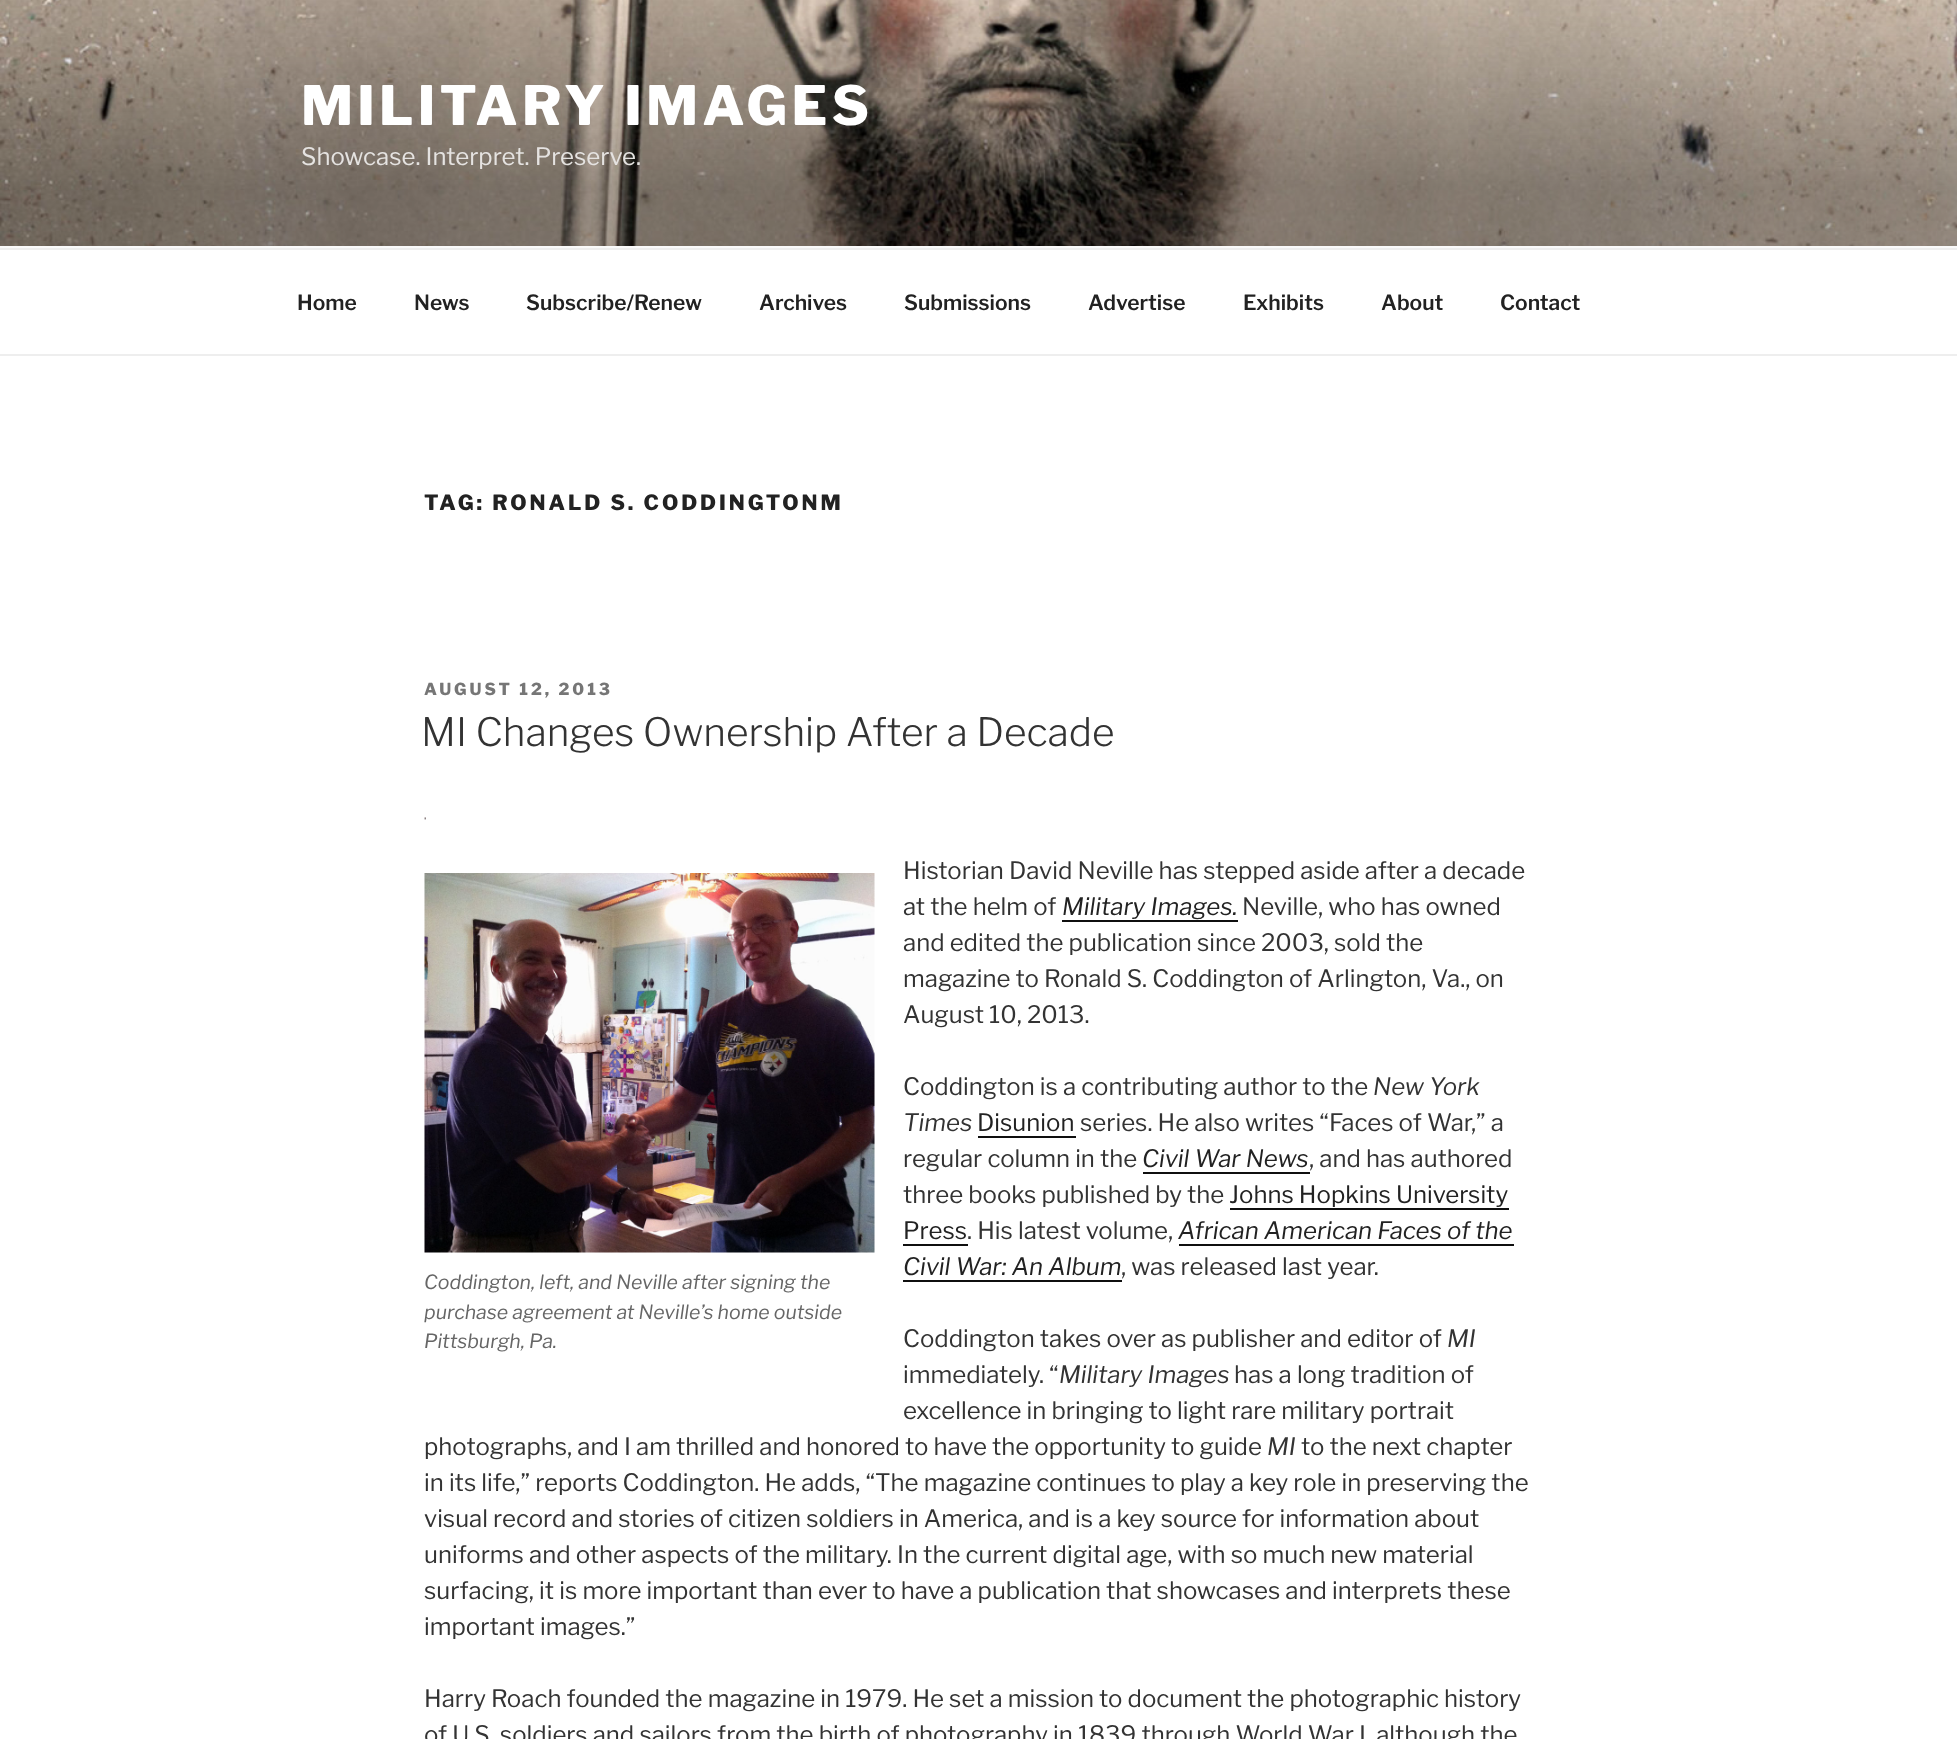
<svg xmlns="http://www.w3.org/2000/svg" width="1957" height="1739">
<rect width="100%" height="100%" fill="#fff"/>
<rect y="246" width="1957" height="2" fill="#fafafa"/>
<image x="0" y="0" width="1957" height="246" href="media/1.png"/>
<text x="301" y="125" style="font-family:Libre Franklin;font-size:54px;font-weight:100;letter-spacing:4.3px;fill:#fff">MILITARY IMAGES</text>
<text x="301" y="165" style="font-family:'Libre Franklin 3';font-size:24px;font-weight:100;fill:#e5e3e1">Showcase. Interpret. Preserve.</text>
<rect y="248" width="1957" height="2" fill="#eee"/>
<rect y="354" width="1957" height="2" fill="#eee"/>
<text x="297" y="310" style="font-family:'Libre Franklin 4';font-size:21px;font-weight:100;fill:#222">Home</text>
<text x="414" y="310" style="font-family:'Libre Franklin 4';font-size:21px;font-weight:100;fill:#222">News</text>
<text x="526" y="310" style="font-family:'Libre Franklin 4';font-size:21px;font-weight:100;fill:#222">Subscribe/Renew</text>
<text x="759" y="310" style="font-family:'Libre Franklin 4';font-size:21px;font-weight:100;fill:#222">Archives</text>
<text x="904" y="310" style="font-family:'Libre Franklin 4';font-size:21px;font-weight:100;fill:#222">Submissions</text>
<text x="1088" y="310" style="font-family:'Libre Franklin 4';font-size:21px;font-weight:100;fill:#222">Advertise</text>
<text x="1243" y="310" style="font-family:'Libre Franklin 4';font-size:21px;font-weight:100;fill:#222">Exhibits</text>
<text x="1381" y="310" style="font-family:'Libre Franklin 4';font-size:21px;font-weight:100;fill:#222">About</text>
<text x="1500" y="310" style="font-family:'Libre Franklin 4';font-size:21px;font-weight:100;fill:#222">Contact</text>
<text x="424" y="510" style="font-family:Libre Franklin;font-size:21px;font-weight:100;letter-spacing:2.95px;fill:#222">TAG: RONALD S. CODDINGTONM</text>
<text x="424" y="695" style="font-family:Libre Franklin;font-size:16.5px;font-weight:100;letter-spacing:3px;fill:#767676">AUGUST 12, 2013</text>
<text x="421" y="746" style="font-family:'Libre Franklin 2';font-size:39px;font-weight:100;fill:#333">MI Changes Ownership After a Decade</text>
<image x="424" y="817" width="2" height="3" href="media/2.png"/>
<text x="903" y="879" style="font-family:'Libre Franklin 3';font-size:24px;font-weight:100;fill:#333">Historian David Neville has stepped aside after a decade</text>
<text x="903" y="915" style="font-family:'Libre Franklin 3';font-size:24px;font-weight:100;fill:#333">at the helm of</text>
<text x="1062" y="915" style="font-family:Libre Franklin;font-size:24px;font-weight:100;font-style:italic;fill:#222">Military Images.</text>
<rect x="1062" y="920" width="176" height="2" fill="#0f0f0f"/>
<text x="1242" y="915" style="font-family:'Libre Franklin 3';font-size:24px;font-weight:100;fill:#333">Neville, who has owned</text>
<text x="903" y="951" style="font-family:'Libre Franklin 3';font-size:24px;font-weight:100;fill:#333">and edited the publication since 2003, sold the</text>
<text x="903" y="987" style="font-family:'Libre Franklin 3';font-size:24px;font-weight:100;fill:#333">magazine to Ronald S. Coddington of Arlington, Va., on</text>
<text x="903" y="1023" style="font-family:'Libre Franklin 3';font-size:24px;font-weight:100;fill:#333">August 10, 2013.</text>
<text x="903" y="1095" style="font-family:'Libre Franklin 3';font-size:24px;font-weight:100;fill:#333">Coddington is a contributing author to the</text>
<text x="1373" y="1095" style="font-family:Libre Franklin;font-size:24px;font-weight:100;font-style:italic;fill:#333">New York</text>
<text x="903" y="1131" style="font-family:Libre Franklin;font-size:24px;font-weight:100;font-style:italic;fill:#333">Times</text>
<text x="977" y="1131" style="font-family:'Libre Franklin 3';font-size:24px;font-weight:100;fill:#222">Disunion</text>
<rect x="978" y="1136" width="98" height="2" fill="#0f0f0f"/>
<text x="1080" y="1131" style="font-family:'Libre Franklin 3';font-size:24px;font-weight:100;fill:#333">series. He also writes “Faces of War,” a</text>
<text x="903" y="1167" style="font-family:'Libre Franklin 3';font-size:24px;font-weight:100;fill:#333">regular column in the</text>
<text x="1142" y="1167" style="font-family:Libre Franklin;font-size:24px;font-weight:100;font-style:italic;fill:#222">Civil War News</text>
<rect x="1143" y="1172" width="167" height="2" fill="#0f0f0f"/>
<text x="1309" y="1167" style="font-family:'Libre Franklin 3';font-size:24px;font-weight:100;fill:#333">, and has authored</text>
<text x="903" y="1203" style="font-family:'Libre Franklin 3';font-size:24px;font-weight:100;fill:#333">three books published by the</text>
<text x="1229" y="1203" style="font-family:'Libre Franklin 3';font-size:24px;font-weight:100;fill:#222">Johns Hopkins University</text>
<rect x="1230" y="1208" width="279" height="2" fill="#0f0f0f"/>
<text x="903" y="1239" style="font-family:'Libre Franklin 3';font-size:24px;font-weight:100;fill:#222">Press</text>
<rect x="903" y="1244" width="65" height="2" fill="#0f0f0f"/>
<text x="967" y="1239" style="font-family:'Libre Franklin 3';font-size:24px;font-weight:100;fill:#333">. His latest volume,</text>
<text x="1178" y="1239" style="font-family:Libre Franklin;font-size:24px;font-weight:100;font-style:italic;fill:#222">African American Faces of the</text>
<rect x="1179" y="1244" width="335" height="2" fill="#0f0f0f"/>
<text x="903" y="1275" style="font-family:Libre Franklin;font-size:24px;font-weight:100;font-style:italic;fill:#222">Civil War: An Album</text>
<rect x="903" y="1280" width="219" height="2" fill="#0f0f0f"/>
<text x="1121" y="1275" style="font-family:'Libre Franklin 3';font-size:24px;font-weight:100;fill:#333">, was released last year.</text>
<image x="424" y="873" width="451" height="380" href="media/3.png"/>
<text x="424" y="1289" style="font-family:Libre Franklin;font-size:19.5px;font-weight:100;font-style:italic;fill:#666">Coddington, left, and Neville after signing the</text>
<text x="424" y="1319" style="font-family:Libre Franklin;font-size:19.5px;font-weight:100;font-style:italic;fill:#666">purchase agreement at Neville’s home outside</text>
<text x="424" y="1348" style="font-family:Libre Franklin;font-size:19.5px;font-weight:100;font-style:italic;fill:#666">Pittsburgh, Pa.</text>
<text x="903" y="1347" style="font-family:'Libre Franklin 3';font-size:24px;font-weight:100;fill:#333">Coddington takes over as publisher and editor of</text>
<text x="1447" y="1347" style="font-family:Libre Franklin;font-size:24px;font-weight:100;font-style:italic;fill:#333">MI</text>
<text x="903" y="1383" style="font-family:'Libre Franklin 3';font-size:24px;font-weight:100;fill:#333">immediately. “</text>
<text x="1059" y="1383" style="font-family:Libre Franklin;font-size:24px;font-weight:100;font-style:italic;fill:#333">Military Images</text>
<text x="1234" y="1383" style="font-family:'Libre Franklin 3';font-size:24px;font-weight:100;fill:#333">has a long tradition of</text>
<text x="903" y="1419" style="font-family:'Libre Franklin 3';font-size:24px;font-weight:100;fill:#333">excellence in bringing to light rare military portrait</text>
<text x="424" y="1455" style="font-family:'Libre Franklin 3';font-size:24px;font-weight:100;fill:#333">photographs, and I am thrilled and honored to have the opportunity to guide</text>
<text x="1267" y="1455" style="font-family:Libre Franklin;font-size:24px;font-weight:100;font-style:italic;fill:#333">MI</text>
<text x="1301" y="1455" style="font-family:'Libre Franklin 3';font-size:24px;font-weight:100;fill:#333">to the next chapter</text>
<text x="424" y="1491" style="font-family:'Libre Franklin 3';font-size:24px;font-weight:100;fill:#333">in its life,” reports Coddington. He adds, “The magazine continues to play a key role in preserving the</text>
<text x="424" y="1527" style="font-family:'Libre Franklin 3';font-size:24px;font-weight:100;fill:#333">visual record and stories of citizen soldiers in America, and is a key source for information about</text>
<text x="424" y="1563" style="font-family:'Libre Franklin 3';font-size:24px;font-weight:100;fill:#333">uniforms and other aspects of the military. In the current digital age, with so much new material</text>
<text x="424" y="1599" style="font-family:'Libre Franklin 3';font-size:24px;font-weight:100;fill:#333">surfacing, it is more important than ever to have a publication that showcases and interprets these</text>
<text x="424" y="1635" style="font-family:'Libre Franklin 3';font-size:24px;font-weight:100;fill:#333">important images.”</text>
<text x="424" y="1707" style="font-family:'Libre Franklin 3';font-size:24px;font-weight:100;fill:#333">Harry Roach founded the magazine in 1979. He set a mission to document the photographic history</text>
<text x="424" y="1743" style="font-family:'Libre Franklin 3';font-size:24px;font-weight:100;fill:#333">of U.S. soldiers and sailors from the birth of photography in 1839 through World War I, although the</text>
</svg>
